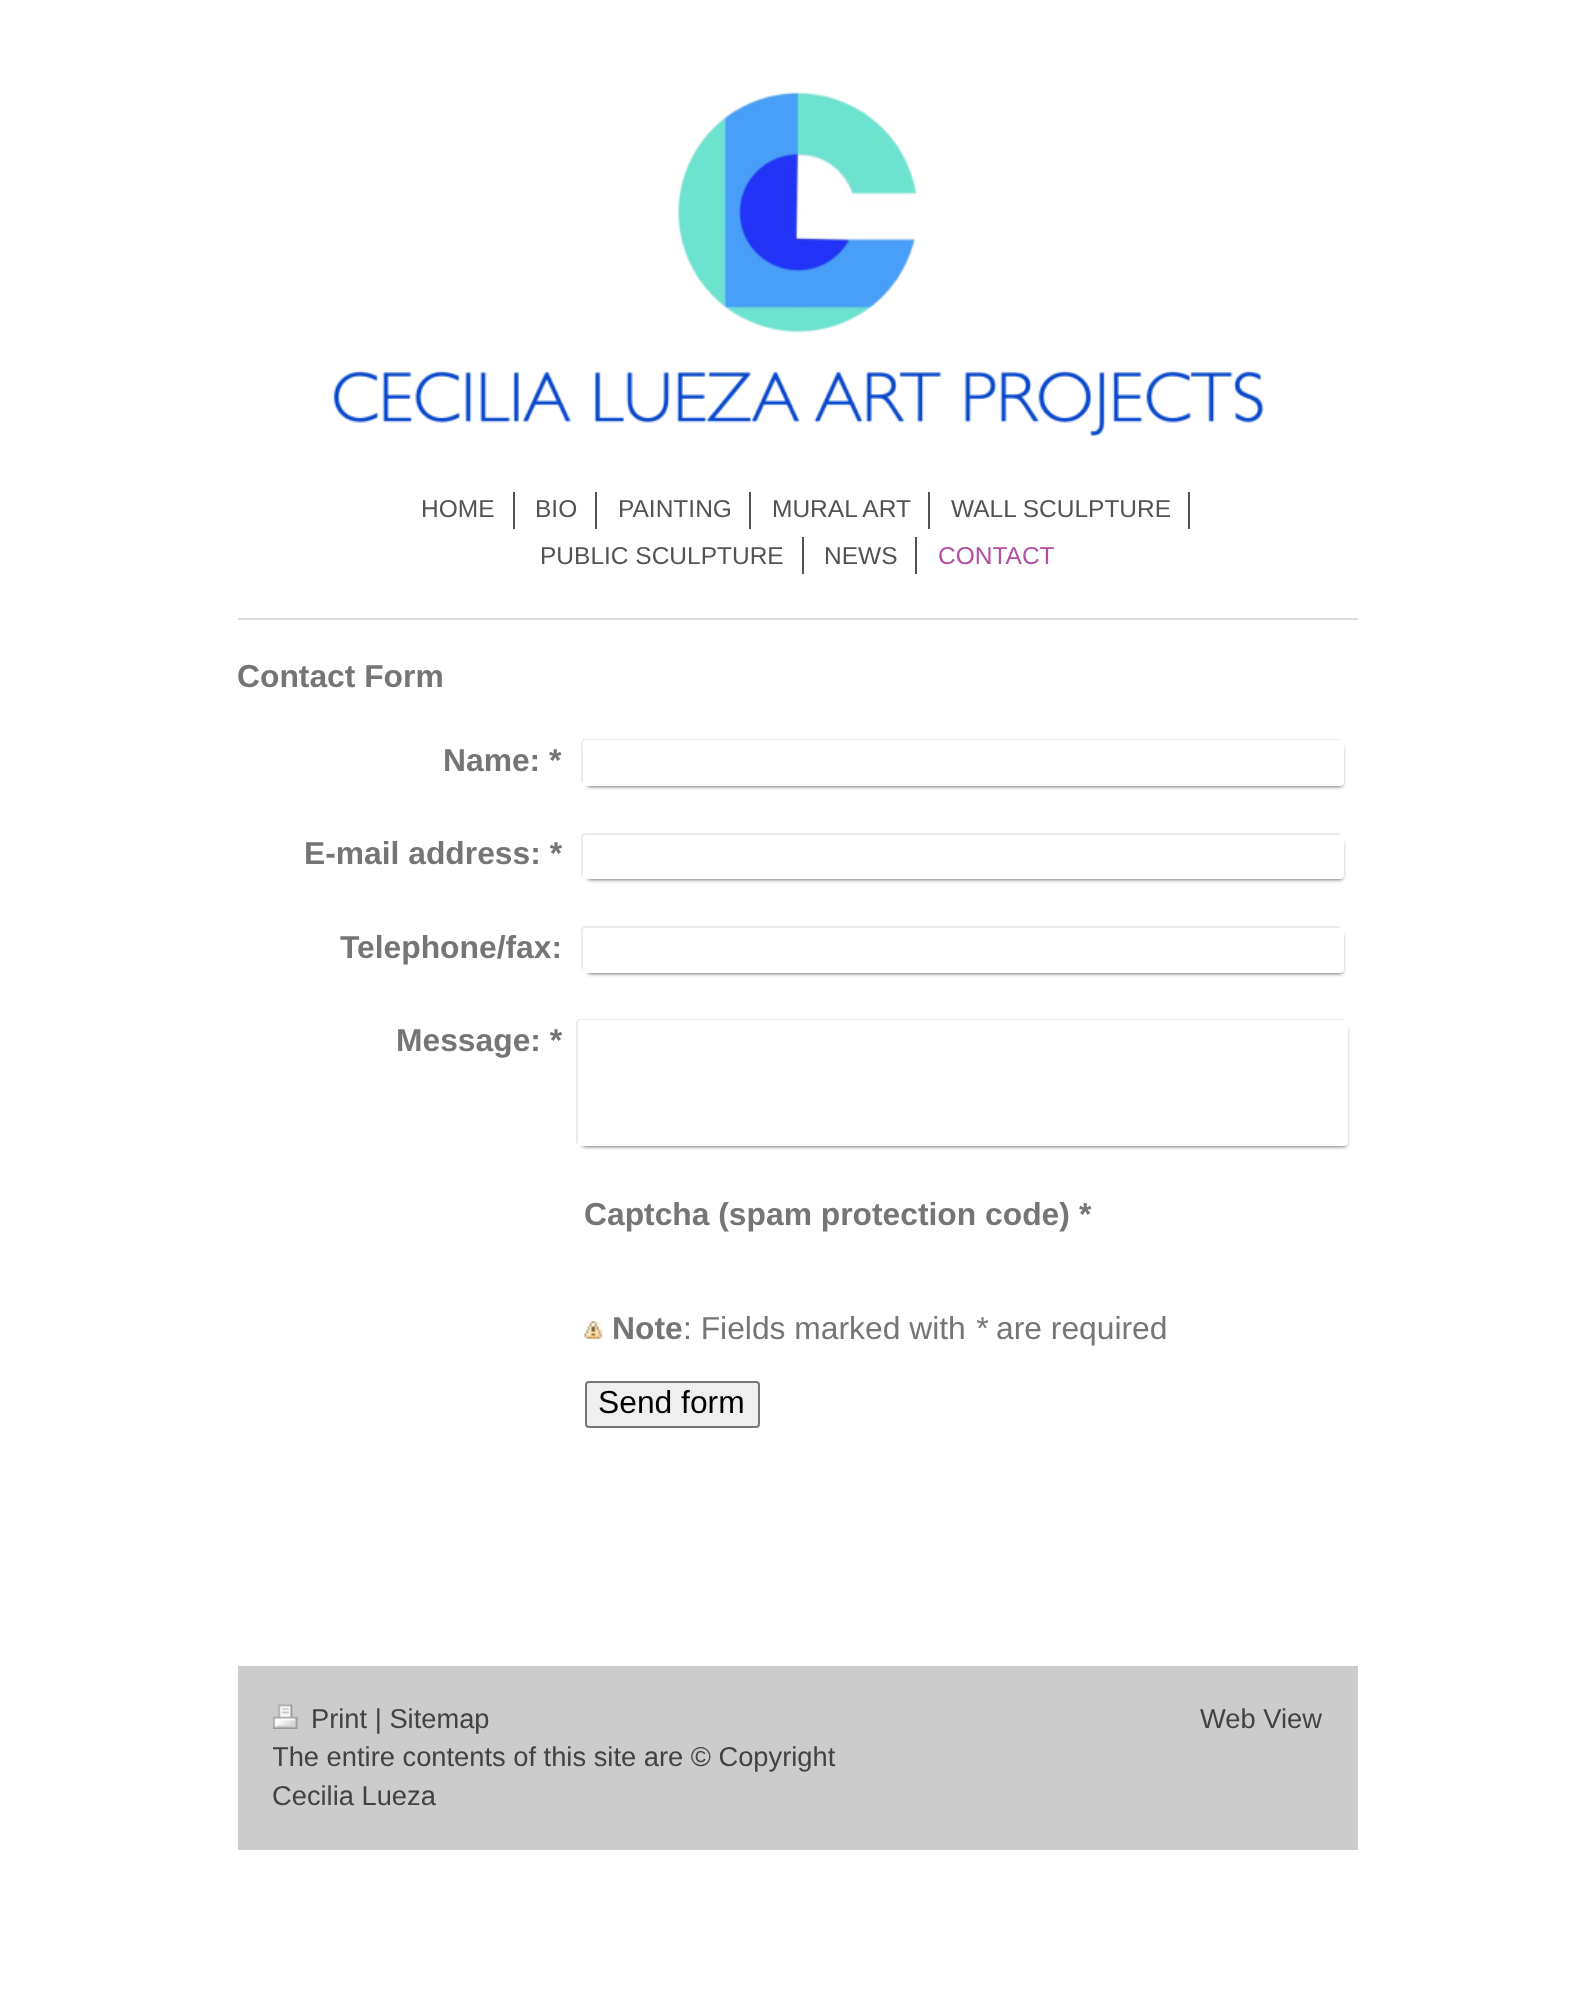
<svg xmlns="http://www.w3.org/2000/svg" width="1594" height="2001">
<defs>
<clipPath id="clip1"><rect x="273" y="1701" width="1050" height="114"/></clipPath>
</defs>
<rect width="100%" height="100%" fill="#fff"/>
<image x="333" y="92" width="931" height="344" href="media/1.png"/>
<rect x="238" y="618" width="1120" height="2" fill="#ddd"/>
<rect x="513" y="492" width="2" height="37" fill="#535353"/>
<text x="421" y="517" style="font-family:Liberation Sans;font-size:24.5px;fill:#535353">HOME</text>
<rect x="595" y="492" width="2" height="37" fill="#535353"/>
<text x="535" y="517" style="font-family:Liberation Sans;font-size:24.5px;fill:#535353">BIO</text>
<rect x="749" y="492" width="2" height="37" fill="#535353"/>
<text x="618" y="517" style="font-family:Liberation Sans;font-size:24.5px;fill:#535353">PAINTING</text>
<rect x="928" y="492" width="2" height="37" fill="#535353"/>
<text x="772" y="517" style="font-family:Liberation Sans;font-size:24.5px;fill:#535353">MURAL ART</text>
<rect x="1188" y="492" width="2" height="37" fill="#535353"/>
<text x="951" y="517" style="font-family:Liberation Sans;font-size:24.5px;fill:#535353">WALL SCULPTURE</text>
<rect x="802" y="537" width="2" height="37" fill="#535353"/>
<text x="540" y="564" style="font-family:Liberation Sans;font-size:24.5px;fill:#535353">PUBLIC SCULPTURE</text>
<rect x="915" y="537" width="2" height="37" fill="#535353"/>
<text x="824" y="564" style="font-family:Liberation Sans;font-size:24.5px;fill:#535353">NEWS</text>
<text x="938" y="564" style="font-family:Liberation Sans;font-size:24.5px;fill:#b14fa2">CONTACT</text>
<text x="237" y="687" style="font-family:Liberation Sans;font-size:31.8px;font-weight:bold;fill:#757575">Contact Form</text>
<path d="M585 739c-2 0-4 2-4 4v37c0 1 1 3 2 3v-33c0-2-2-10 3-10h755l-3-1z" fill="#ebebeb"/>
<rect x="588" y="747" width="754" height="39" fill="#000000cc" filter="blur(2px)"/>
<text x="443" y="771" style="font-family:Liberation Sans;font-size:31.8px;font-weight:bold;fill:#757575">Name: *</text>
<rect x="583" y="740" width="761" height="46" rx="4" fill="#fff"/>
<path d="M585 833c-2 0-4 2-4 4v36c0 2 1 3 2 4v-33c0-2-2-9 3-9h755c0-1-2-2-3-2z" fill="#ebebeb"/>
<rect x="588" y="842" width="754" height="37" fill="#000000cc" filter="blur(2px)"/>
<text x="304" y="864" style="font-family:Liberation Sans;font-size:31.8px;font-weight:bold;fill:#757575">E-mail address: *</text>
<rect x="583" y="835" width="761" height="44" rx="4" fill="#fff"/>
<path d="M585 926c-2 0-4 2-4 4v37c0 1 1 3 2 3v-33c0-2-2-9 3-9h755c-1-1-2-2-3-2z" fill="#ebebeb"/>
<rect x="588" y="935" width="754" height="38" fill="#000000cc" filter="blur(2px)"/>
<text x="340" y="958" style="font-family:Liberation Sans;font-size:31.8px;font-weight:bold;fill:#757575">Telephone/fax:</text>
<rect x="583" y="928" width="761" height="45" rx="4" fill="#fff"/>
<path d="M580 1019c-2 0-4 2-4 4v118c0 1 1 3 2 3v-1v-119c0-2 1-4 3-4h764c-1 0-2-1-3-1z" fill="#ebebeb"/>
<rect x="583" y="1027" width="763" height="119" fill="#000000cc" filter="blur(2px)"/>
<text x="396" y="1051" style="font-family:Liberation Sans;font-size:31.8px;font-weight:bold;fill:#757575">Message: *</text>
<rect x="578" y="1020" width="770" height="126" rx="4" fill="#fff"/>
<text x="584" y="1225" style="font-family:Liberation Sans;font-size:31.8px;font-weight:bold;fill:#757575">Captcha (spam protection code)</text>
<text x="1079" y="1225" style="font-family:Liberation Sans;font-size:31.8px;font-weight:bold;fill:#757575">*</text>
<image x="584" y="1321" width="18" height="18" href="media/2.png"/>
<text x="612" y="1339" style="font-family:Liberation Sans;font-size:31.8px;font-weight:bold;fill:#757575">Note</text>
<text x="683" y="1339" style="font-family:Liberation Sans;font-size:31.8px;fill:#757575">: Fields marked with</text>
<text x="975" y="1339" style="font-family:Liberation Sans;font-size:31.8px;font-style:italic;fill:#757575">*</text>
<text x="996" y="1339" style="font-family:Liberation Sans;font-size:31.8px;fill:#757575">are required</text>
<rect x="586" y="1382" width="173" height="45" rx="3" fill="#efefef" stroke="#767676" stroke-width="2"/>
<text x="598" y="1413" style="font-family:Liberation Sans;font-size:31.8px;fill:#000">Send form</text>
<rect x="238" y="1666" width="1120" height="184" fill="#ccc"/>
<image x="273" y="1704" width="25" height="25" href="media/3.png"/>
<text x="311" y="1728" style="font-family:Liberation Sans;font-size:27.3px;fill:#424242">Print | Sitemap</text>
<g clip-path="url(#clip1)">
<text x="272" y="1766" style="font-family:Liberation Sans;font-size:27.3px;fill:#424242">The entire contents of this site are © Copyright</text>
</g>
<text x="272" y="1805" style="font-family:Liberation Sans;font-size:27.3px;fill:#424242">Cecilia Lueza</text>
<text x="1200" y="1728" style="font-family:Liberation Sans;font-size:27.3px;fill:#424242">Web View</text>
</svg>
